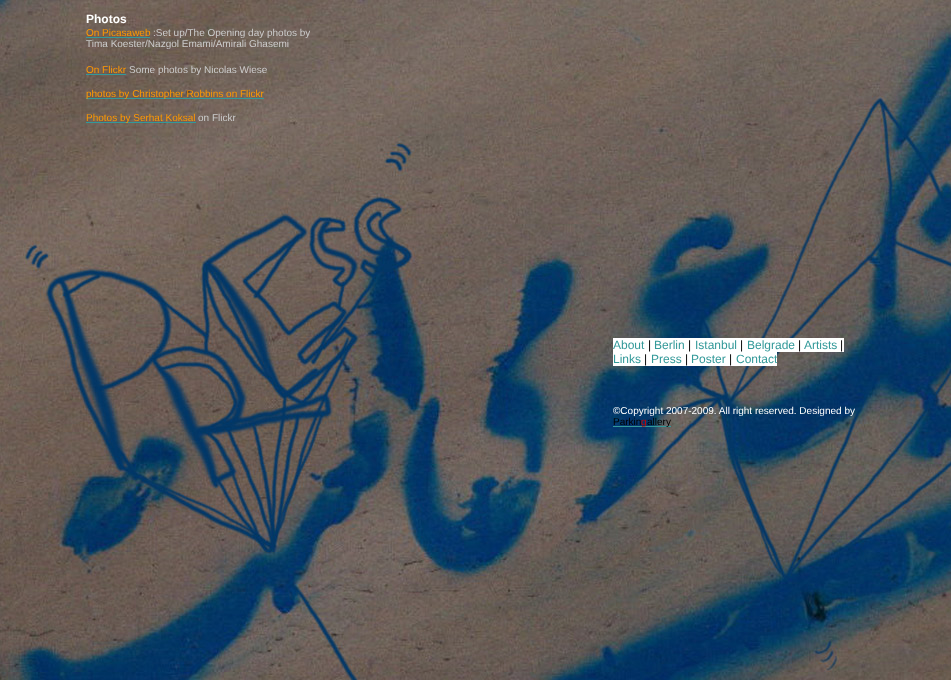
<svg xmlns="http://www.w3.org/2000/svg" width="951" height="680">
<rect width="100%" height="100%" fill="#fff"/>
<image x="0" y="0" width="951" height="680" href="media/1.png"/>
<text x="86" y="23" style="font-family:Liberation Sans;font-size:12px;font-weight:bold;fill:#fff">Photos</text>
<text x="86" y="36" style="font-family:Liberation Sans;font-size:10px;fill:#f90">On Picasaweb</text>
<rect x="86" y="37" width="64" height="1" fill="#399"/>
<text x="153" y="36" style="font-family:Liberation Sans;font-size:10px;fill:#ccc">:Set up/The Opening day photos by</text>
<text x="86" y="47" style="font-family:Liberation Sans;font-size:10px;fill:#ccc">Tima Koester/Nazgol Emami/Amirali Ghasemi</text>
<text x="86" y="73" style="font-family:Liberation Sans;font-size:10px;fill:#f90">On Flickr</text>
<rect x="86" y="74" width="40" height="1" fill="#399"/>
<text x="129" y="73" style="font-family:Liberation Sans;font-size:10px;fill:#ccc">Some photos by Nicolas Wiese</text>
<rect x="86" y="98" width="178" height="1" fill="#399"/>
<text x="86" y="97" style="font-family:Liberation Sans;font-size:10px;fill:#f90">photos by Christopher Robbins on Flickr</text>
<rect x="86" y="122" width="110" height="1" fill="#399"/>
<text x="86" y="121" style="font-family:Liberation Sans;font-size:10px;fill:#f90">Photos by Serhat Koksal</text>
<text x="198" y="121" style="font-family:Liberation Sans;font-size:10px;fill:#ccc">on Flickr</text>
<rect x="613" y="338" width="231" height="14" fill="#fff"/>
<text x="613" y="349" style="font-family:Liberation Sans;font-size:12px;fill:#399">About</text>
<text x="648" y="349" style="font-family:Liberation Sans;font-size:12px;fill:#000">|</text>
<text x="654" y="349" style="font-family:Liberation Sans;font-size:12px;fill:#399">Berlin</text>
<text x="688" y="349" style="font-family:Liberation Sans;font-size:12px;fill:#000">|</text>
<text x="695" y="349" style="font-family:Liberation Sans;font-size:12px;fill:#399">Istanbul</text>
<text x="740" y="349" style="font-family:Liberation Sans;font-size:12px;fill:#000">|</text>
<text x="747" y="349" style="font-family:Liberation Sans;font-size:12px;fill:#399">Belgrade</text>
<text x="798" y="349" style="font-family:Liberation Sans;font-size:12px;fill:#000">|</text>
<text x="804" y="349" style="font-family:Liberation Sans;font-size:12px;fill:#399">Artists</text>
<text x="840" y="349" style="font-family:Liberation Sans;font-size:12px;fill:#000">|</text>
<rect x="613" y="352" width="164" height="14" fill="#fff"/>
<text x="613" y="363" style="font-family:Liberation Sans;font-size:12px;fill:#399">Links</text>
<text x="644" y="363" style="font-family:Liberation Sans;font-size:12px;fill:#000">|</text>
<text x="651" y="363" style="font-family:Liberation Sans;font-size:12px;fill:#399">Press</text>
<text x="685" y="363" style="font-family:Liberation Sans;font-size:12px;fill:#000">|</text>
<text x="691" y="363" style="font-family:Liberation Sans;font-size:12px;fill:#399">Poster</text>
<text x="729" y="363" style="font-family:Liberation Sans;font-size:12px;fill:#000">|</text>
<text x="736" y="363" style="font-family:Liberation Sans;font-size:12px;fill:#399">Contact</text>
<text x="613" y="414" style="font-family:Liberation Sans;font-size:10px;fill:#fff">©Copyright 2007-2009. All right reserved. Designed by</text>
<text x="613" y="425" style="font-family:Liberation Sans;font-size:10px;fill:#000">Parkin</text>
<rect x="613" y="426" width="58" height="1" fill="#399"/>
<text x="641" y="425" style="font-family:Liberation Sans;font-size:10px;fill:#c00">g</text>
<text x="647" y="425" style="font-family:Liberation Sans;font-size:10px;fill:#000">allery</text>
</svg>
